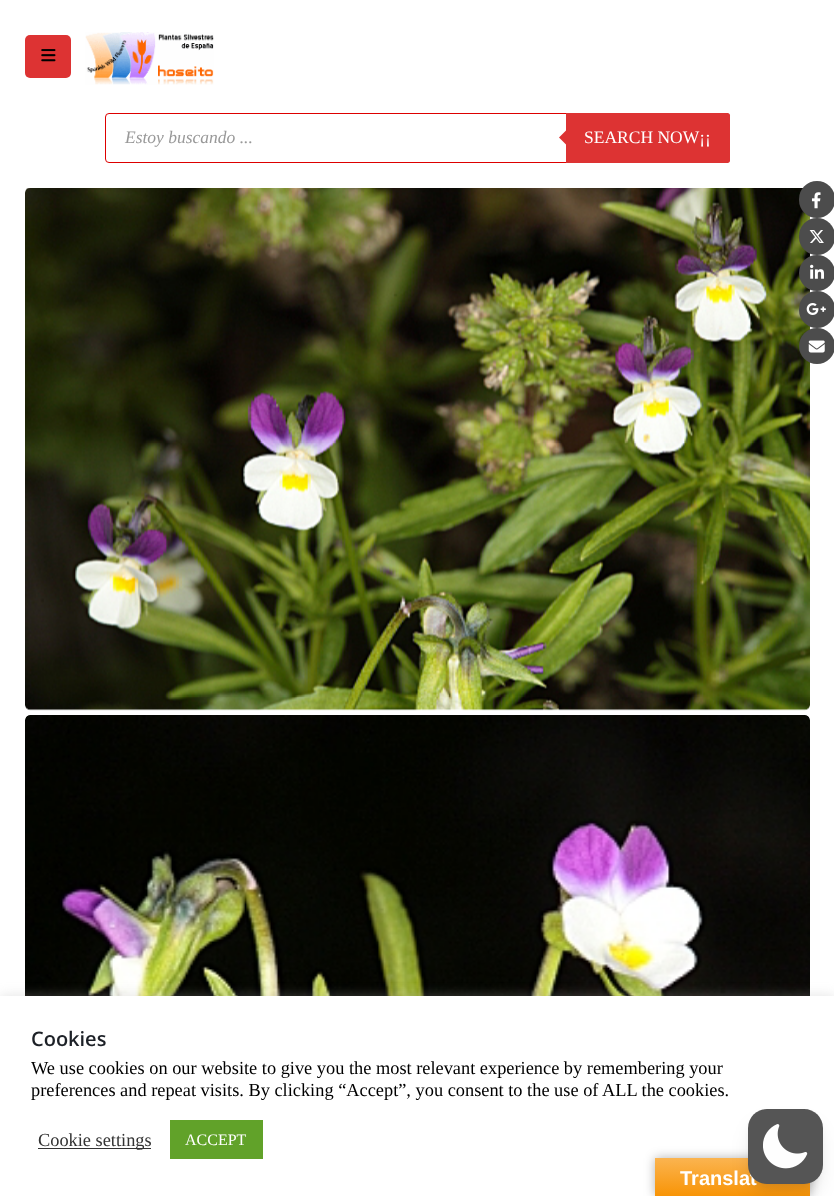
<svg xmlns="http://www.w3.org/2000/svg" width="834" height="1196">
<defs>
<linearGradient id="g1" gradientUnits="userSpaceOnUse" x1="733" y1="1158" x2="733" y2="1196"><stop offset="0" stop-color="#fbb450"/><stop offset="1" stop-color="#f89406"/></linearGradient>
</defs>
<rect width="100%" height="100%" fill="#fff"/>
<rect x="25" y="35" width="46" height="43" rx="5" fill="#d33"/>
<image x="41" y="49" width="15" height="13" href="media/1.png"/>
<image x="85" y="32" width="129" height="53" href="media/2.png"/>
<rect x="105.5" y="113.5" width="624" height="49" rx="3.5" fill="none" stroke="#d00"/>
<text x="125" y="143" style="font-family:Liberation Serif;font-size:17.5px;font-style:italic;fill:#999">Estoy buscando ...</text>
<path d="M566 113h161.5c1.5 0 2.5 1 2.5 2.5v45c0 1.5-1 2.5-2.5 2.5h-161.5z" fill="#d33"/>
<path d="M569 127.5v20l-10-10z" fill="#d33"/>
<text x="584" y="143" style="font-family:Liberation Serif;font-size:17.5px;fill:#fff">SEARCH NOW¡¡</text>
<image x="25" y="188" width="785" height="523" href="media/3.png"/>
<image x="25" y="715" width="785" height="281" href="media/4.png"/>
<rect x="799" y="181" width="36" height="37" rx="18" fill="#4c4c4c"/>
<image x="811" y="192" width="10" height="17" href="media/5.png"/>
<rect x="799" y="218" width="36" height="37" rx="18" fill="#4c4c4c"/>
<image x="809" y="230" width="15" height="13" href="media/6.png"/>
<circle cx="817" cy="273" r="18" fill="#4c4c4c"/>
<image x="810" y="264" width="14" height="15" href="media/7.png"/>
<rect x="799" y="291" width="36" height="37" rx="18" fill="#4c4c4c"/>
<image x="806" y="303" width="20" height="12" href="media/8.png"/>
<circle cx="817" cy="346" r="18" fill="#4c4c4c"/>
<image x="808" y="340" width="17" height="13" href="media/9.png"/>
<rect y="995" width="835" height="200" fill="#acabab4d" filter="blur(6px)"/>
<rect y="996" width="834" height="200" fill="#fff"/>
<text x="31" y="1046" style="font-family:Open Sans;font-size:20px;font-weight:600;fill:#1d2127">Cookies</text>
<text x="31" y="1074" style="font-family:Liberation Serif;font-size:18.35px;fill:#000">We use cookies on our website to give you the most relevant experience by remembering your</text>
<text x="31" y="1096" style="font-family:Liberation Serif;font-size:18.35px;fill:#000">preferences and repeat visits. By clicking “Accept”, you consent to the use of ALL the cookies.</text>
<rect x="38" y="1148" width="113" height="1" fill="#333"/>
<text x="38" y="1146" style="font-family:Liberation Serif;font-size:18.35px;fill:#333">Cookie settings</text>
<rect x="170" y="1120" width="93" height="39" fill="#61a229"/>
<text x="185" y="1145" style="font-family:Liberation Serif;font-size:16px;fill:#fff">ACCEPT</text>
<rect x="655" y="1158" width="155" height="38" fill="#0000004d" filter="blur(5.5px)"/>
<rect x="655" y="1158" width="155" height="38" fill="url(#g1)"/>
<rect x="753" y="1119" width="65" height="65" rx="14" fill="#0000001a" filter="blur(4px)"/>
<rect x="751" y="1125" width="68" height="68" rx="15" fill="#0000001a" filter="blur(9.5px)"/>
<text x="680" y="1185" style="font-family:Liberation Sans;font-size:20px;font-weight:bold;fill:#fff">Translat</text>
<rect x="748" y="1109" width="75" height="75" rx="19" fill="#555"/>
<image x="763" y="1124" width="45" height="45" href="media/10.png"/>
</svg>
